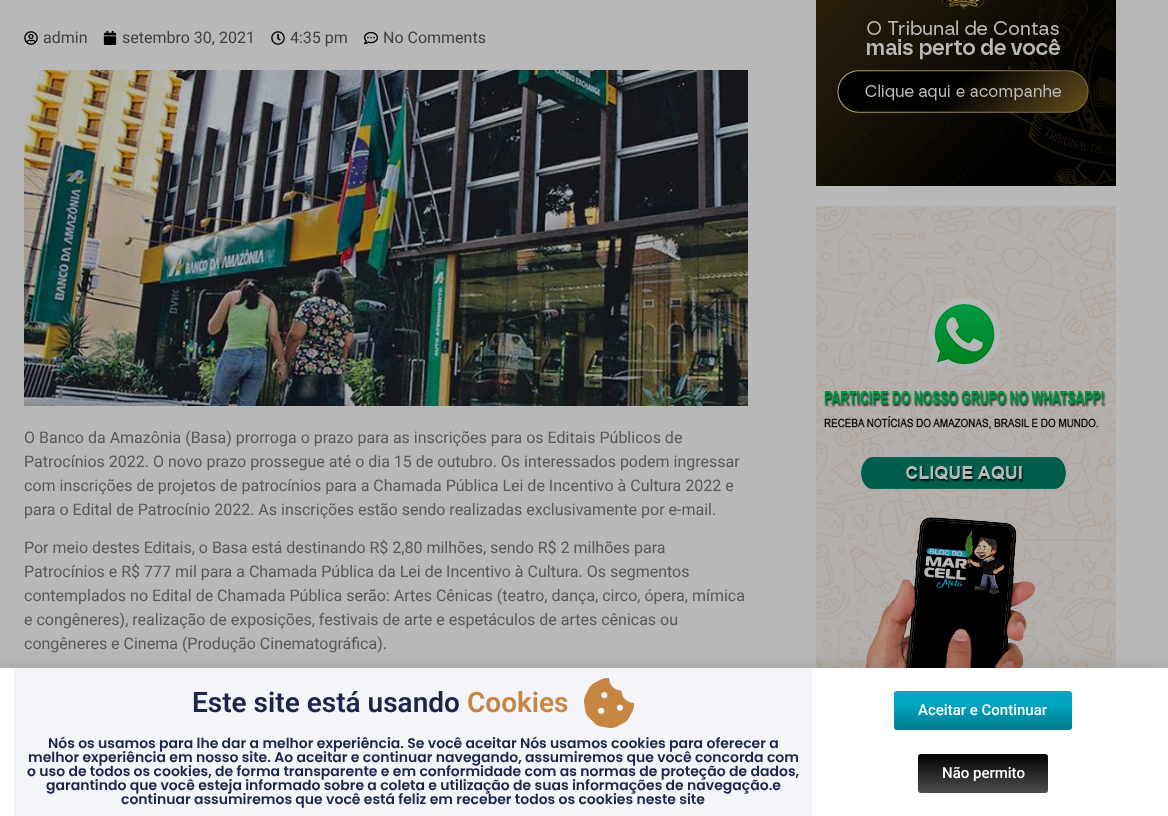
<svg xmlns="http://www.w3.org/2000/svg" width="1168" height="816">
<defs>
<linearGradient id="g1" gradientUnits="userSpaceOnUse" x1="983" y1="691" x2="983" y2="730"><stop offset="0.29" stop-color="#00a7c4"/><stop offset="1" stop-color="#007a8f"/></linearGradient>
<linearGradient id="g2" gradientUnits="userSpaceOnUse" x1="983" y1="754" x2="983" y2="793"><stop offset="0" stop-color="#000"/><stop offset="1" stop-color="#4e4e4e"/></linearGradient>
</defs>
<rect width="100%" height="100%" fill="#b8b8b8"/>
<image x="24" y="31" width="14" height="14" href="media/1.png"/>
<text x="43" y="43" style="font-family:Roboto;font-size:16px;fill:#3d4045">admin</text>
<image x="103" y="31" width="14" height="14" href="media/2.png"/>
<text x="122" y="43" style="font-family:Roboto;font-size:16px;fill:#3d4045">setembro 30, 2021</text>
<image x="271" y="31" width="14" height="14" href="media/3.png"/>
<text x="290" y="43" style="font-family:Roboto;font-size:16px;fill:#3d4045">4:35 pm</text>
<image x="364" y="31" width="14" height="14" href="media/4.png"/>
<text x="383" y="43" style="font-family:Roboto;font-size:16px;fill:#3d4045">No Comments</text>
<image x="24" y="70" width="724" height="336" href="media/5.png"/>
<text x="24" y="443" style="font-family:Roboto;font-size:16px;fill:#585858">O Banco da Amazônia (Basa) prorroga o prazo para as inscrições para os Editais Públicos de</text>
<text x="24" y="467" style="font-family:Roboto;font-size:16px;fill:#585858">Patrocínios 2022. O novo prazo prossegue até o dia 15 de outubro. Os interessados podem ingressar</text>
<text x="24" y="491" style="font-family:Roboto;font-size:16px;fill:#585858">com inscrições de projetos de patrocínios para a Chamada Pública Lei de Incentivo à Cultura 2022 e</text>
<text x="24" y="515" style="font-family:Roboto;font-size:16px;fill:#585858">para o Edital de Patrocínio 2022. As inscrições estão sendo realizadas exclusivamente por e-mail.</text>
<text x="24" y="553" style="font-family:Roboto;font-size:16px;fill:#585858">Por meio destes Editais, o Basa está destinando R$ 2,80 milhões, sendo R$ 2 milhões para</text>
<text x="24" y="577" style="font-family:Roboto;font-size:16px;fill:#585858">Patrocínios e R$ 777 mil para a Chamada Pública da Lei de Incentivo à Cultura. Os segmentos</text>
<text x="24" y="601" style="font-family:Roboto;font-size:16px;fill:#585858">contemplados no Edital de Chamada Pública serão: Artes Cênicas (teatro, dança, circo, ópera, mímica</text>
<text x="24" y="625" style="font-family:Roboto;font-size:16px;fill:#585858">e congêneres), realização de exposições, festivais de arte e espetáculos de artes cênicas ou</text>
<text x="24" y="649" style="font-family:Roboto;font-size:16px;fill:#585858">congêneres e Cinema (Produção Cinematográfica).</text>
<image x="816" y="0" width="300" height="186" href="media/6.png"/>
<image x="816" y="206" width="300" height="462" href="media/7.png"/>
<rect x="-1" y="673" width="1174" height="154" fill="#00000033" filter="blur(11.5px)"/>
<rect y="668" width="1168" height="148" fill="#fff"/>
<rect x="14" y="668" width="798" height="148" fill="#f3f5f8"/>
<text x="192" y="712" style="font-family:Roboto;font-size:28px;font-weight:600;fill:#1c244b">Este site está usando</text>
<text x="467" y="712" style="font-family:Roboto;font-size:28px;font-weight:600;fill:#c68642">Cookies</text>
<image x="584" y="678" width="50" height="50" href="media/8.png"/>
<text x="48" y="748" style="font-family:Poppins;font-size:14px;font-weight:600;fill:#1c244b">Nós os usamos para lhe dar a melhor experiência. Se você aceitar Nós usamos cookies para oferecer a</text>
<text x="28" y="762" style="font-family:Poppins;font-size:14px;font-weight:600;fill:#1c244b">melhor experiência em nosso site. Ao aceitar e continuar navegando, assumiremos que você concorda com</text>
<text x="27" y="776" style="font-family:Poppins;font-size:14px;font-weight:600;fill:#1c244b">o uso de todos os cookies, de forma transparente e em conformidade com as normas de proteção de dados,</text>
<text x="46" y="790" style="font-family:Poppins;font-size:14px;font-weight:600;fill:#1c244b">garantindo que você esteja informado sobre a coleta e utilização de suas informações de navegação.e</text>
<text x="121" y="804" style="font-family:Poppins;font-size:14px;font-weight:600;fill:#1c244b">continuar assumiremos que você está feliz em receber todos os cookies neste site</text>
<rect x="894" y="691" width="178" height="39" rx="3" fill="url(#g1)"/>
<text x="918" y="715" style="font-family:Roboto;font-size:15px;font-weight:500;fill:#fff">Aceitar e Continuar</text>
<rect x="918" y="754" width="130" height="39" rx="3" fill="url(#g2)"/>
<text x="942" y="778" style="font-family:Roboto;font-size:15px;font-weight:500;fill:#fff">Não permito</text>
</svg>
